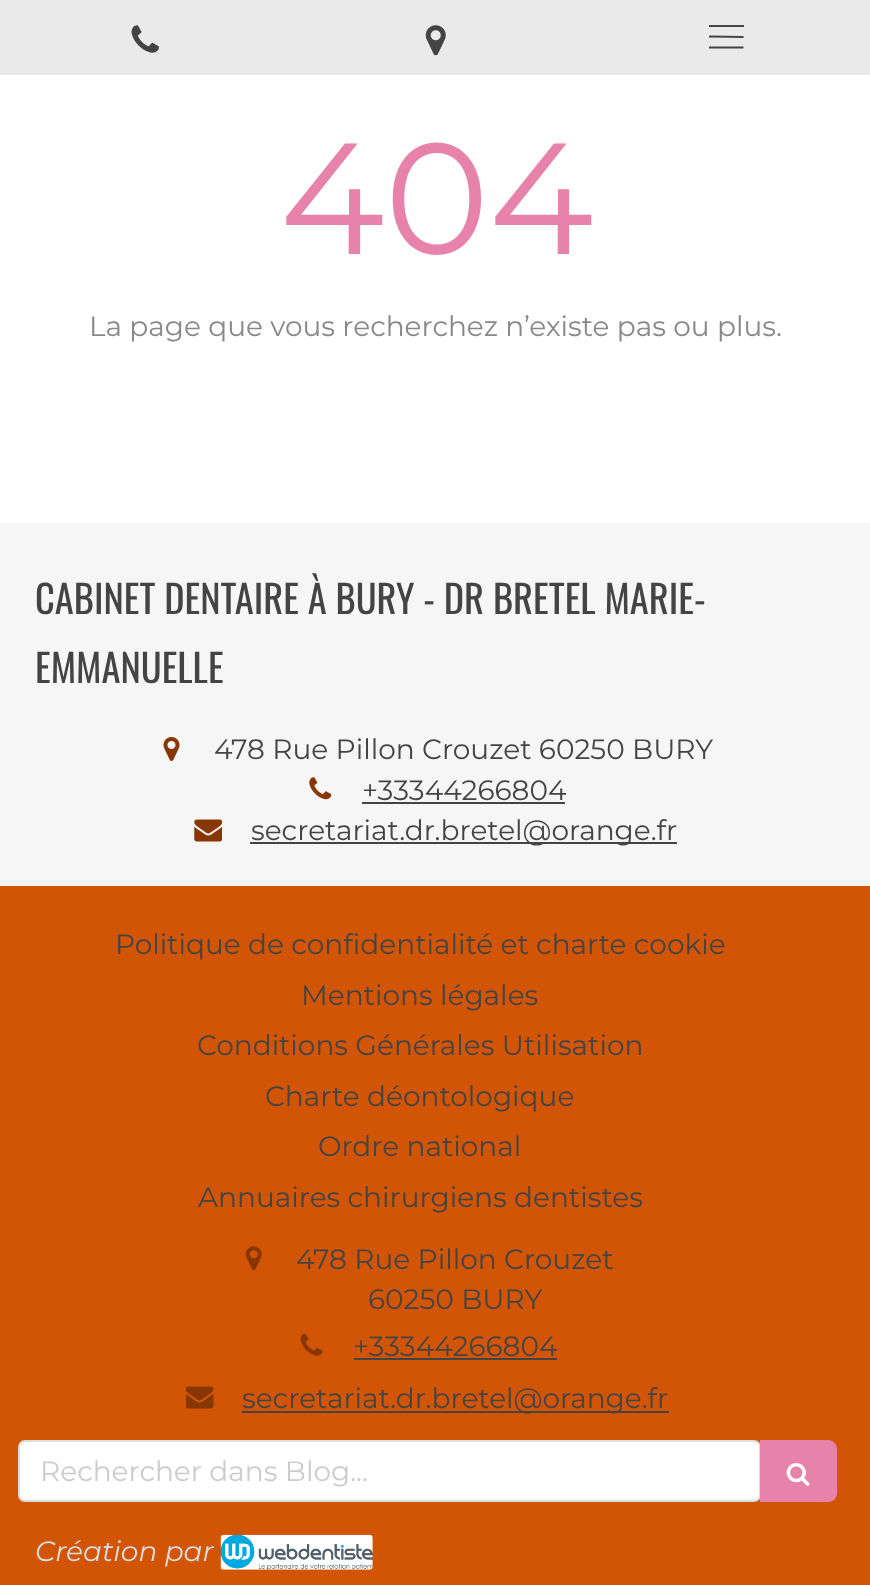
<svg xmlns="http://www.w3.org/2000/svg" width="870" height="1585">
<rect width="100%" height="100%" fill="#fff"/>
<rect width="870" height="75" fill="#eaeaea"/>
<image x="131" y="25" width="28" height="28" href="media/1.png"/>
<image x="425" y="25" width="21" height="31" href="media/2.png"/>
<rect x="709" y="25" width="35" height="2" fill="#444"/>
<path d="M709 36.5l34.5 .5" fill="none" stroke="#444" stroke-width="2.1"/>
<path d="M709 47.5h34.5" fill="none" stroke="#444" stroke-width="2.1"/>
<text x="280" y="254" style="font-family:Montserrat;font-size:158px;fill:#e783aa">404</text>
<text x="89" y="336" style="font-family:Montserrat;font-size:28px;fill:#888">La page que vous recherchez n’existe pas ou plus.</text>
<rect y="886" width="870" height="699" fill="#d25505"/>
<rect y="523" width="870" height="363" fill="#f6f6f6"/>
<text x="35" y="614" style="font-family:Oswald;font-size:38.5px;fill:#444">CABINET DENTAIRE À BURY - DR BRETEL MARIE-</text>
<text x="35" y="683" style="font-family:Oswald;font-size:38.5px;fill:#444">EMMANUELLE</text>
<image x="163" y="737" width="17" height="24" href="media/3.png"/>
<text x="214" y="759" style="font-family:Montserrat;font-size:28px;fill:#444">478 Rue Pillon Crouzet 60250 BURY</text>
<image x="309" y="777" width="23" height="23" href="media/4.png"/>
<text x="362" y="800" style="font-family:Montserrat;font-size:28px;fill:#444">+33344266804</text>
<rect x="362" y="802" width="203" height="2" fill="#444"/>
<image x="194" y="819" width="28" height="23" href="media/5.png"/>
<rect x="250" y="842" width="427" height="2" fill="#444"/>
<text x="251" y="840" style="font-family:Montserrat;font-size:28px;fill:#444">secretariat.dr.bretel@orange.fr</text>
<text x="115" y="954" style="font-family:Montserrat;font-size:28px;fill:#444">Politique de confidentialité et charte cookie</text>
<text x="301" y="1005" style="font-family:Montserrat;font-size:28px;fill:#444">Mentions légales</text>
<text x="197" y="1055" style="font-family:Montserrat;font-size:28px;fill:#444">Conditions Générales Utilisation</text>
<text x="265" y="1106" style="font-family:Montserrat;font-size:28px;fill:#444">Charte déontologique</text>
<text x="318" y="1156" style="font-family:Montserrat;font-size:28px;fill:#444">Ordre national</text>
<text x="198" y="1207" style="font-family:Montserrat;font-size:28px;fill:#444">Annuaires chirurgiens dentistes</text>
<image x="245" y="1246" width="17" height="25" href="media/6.png"/>
<text x="296" y="1269" style="font-family:Montserrat;font-size:28px;fill:#444">478 Rue Pillon Crouzet</text>
<text x="368" y="1309" style="font-family:Montserrat;font-size:28px;fill:#444">60250 BURY</text>
<image x="300" y="1333" width="23" height="23" href="media/7.png"/>
<text x="353" y="1356" style="font-family:Montserrat;font-size:28px;fill:#444">+33344266804</text>
<rect x="354" y="1358" width="203" height="2" fill="#444"/>
<image x="186" y="1386" width="28" height="23" href="media/8.png"/>
<rect x="242" y="1411" width="427" height="2" fill="#444"/>
<text x="242" y="1408" style="font-family:Montserrat;font-size:28px;fill:#444">secretariat.dr.bretel@orange.fr</text>
<rect x="19" y="1441" width="741" height="60" rx="6" fill="#fff" stroke="#ddd" stroke-width="2"/>
<text x="40" y="1481" style="font-family:Montserrat;font-size:28px;fill:#ccc">Rechercher dans Blog...</text>
<path d="M760 1440h68c5 0 9 4 9 9v44c0 5-4 9-9 9h-68z" fill="#e783aa"/>
<image x="786" y="1463" width="24" height="23" href="media/9.png"/>
<text x="35" y="1561" style="font-family:Montserrat;font-size:28px;font-style:italic;fill:#dcdcdc">Création par</text>
<image x="220" y="1534" width="153" height="36" href="media/10.png"/>
</svg>
